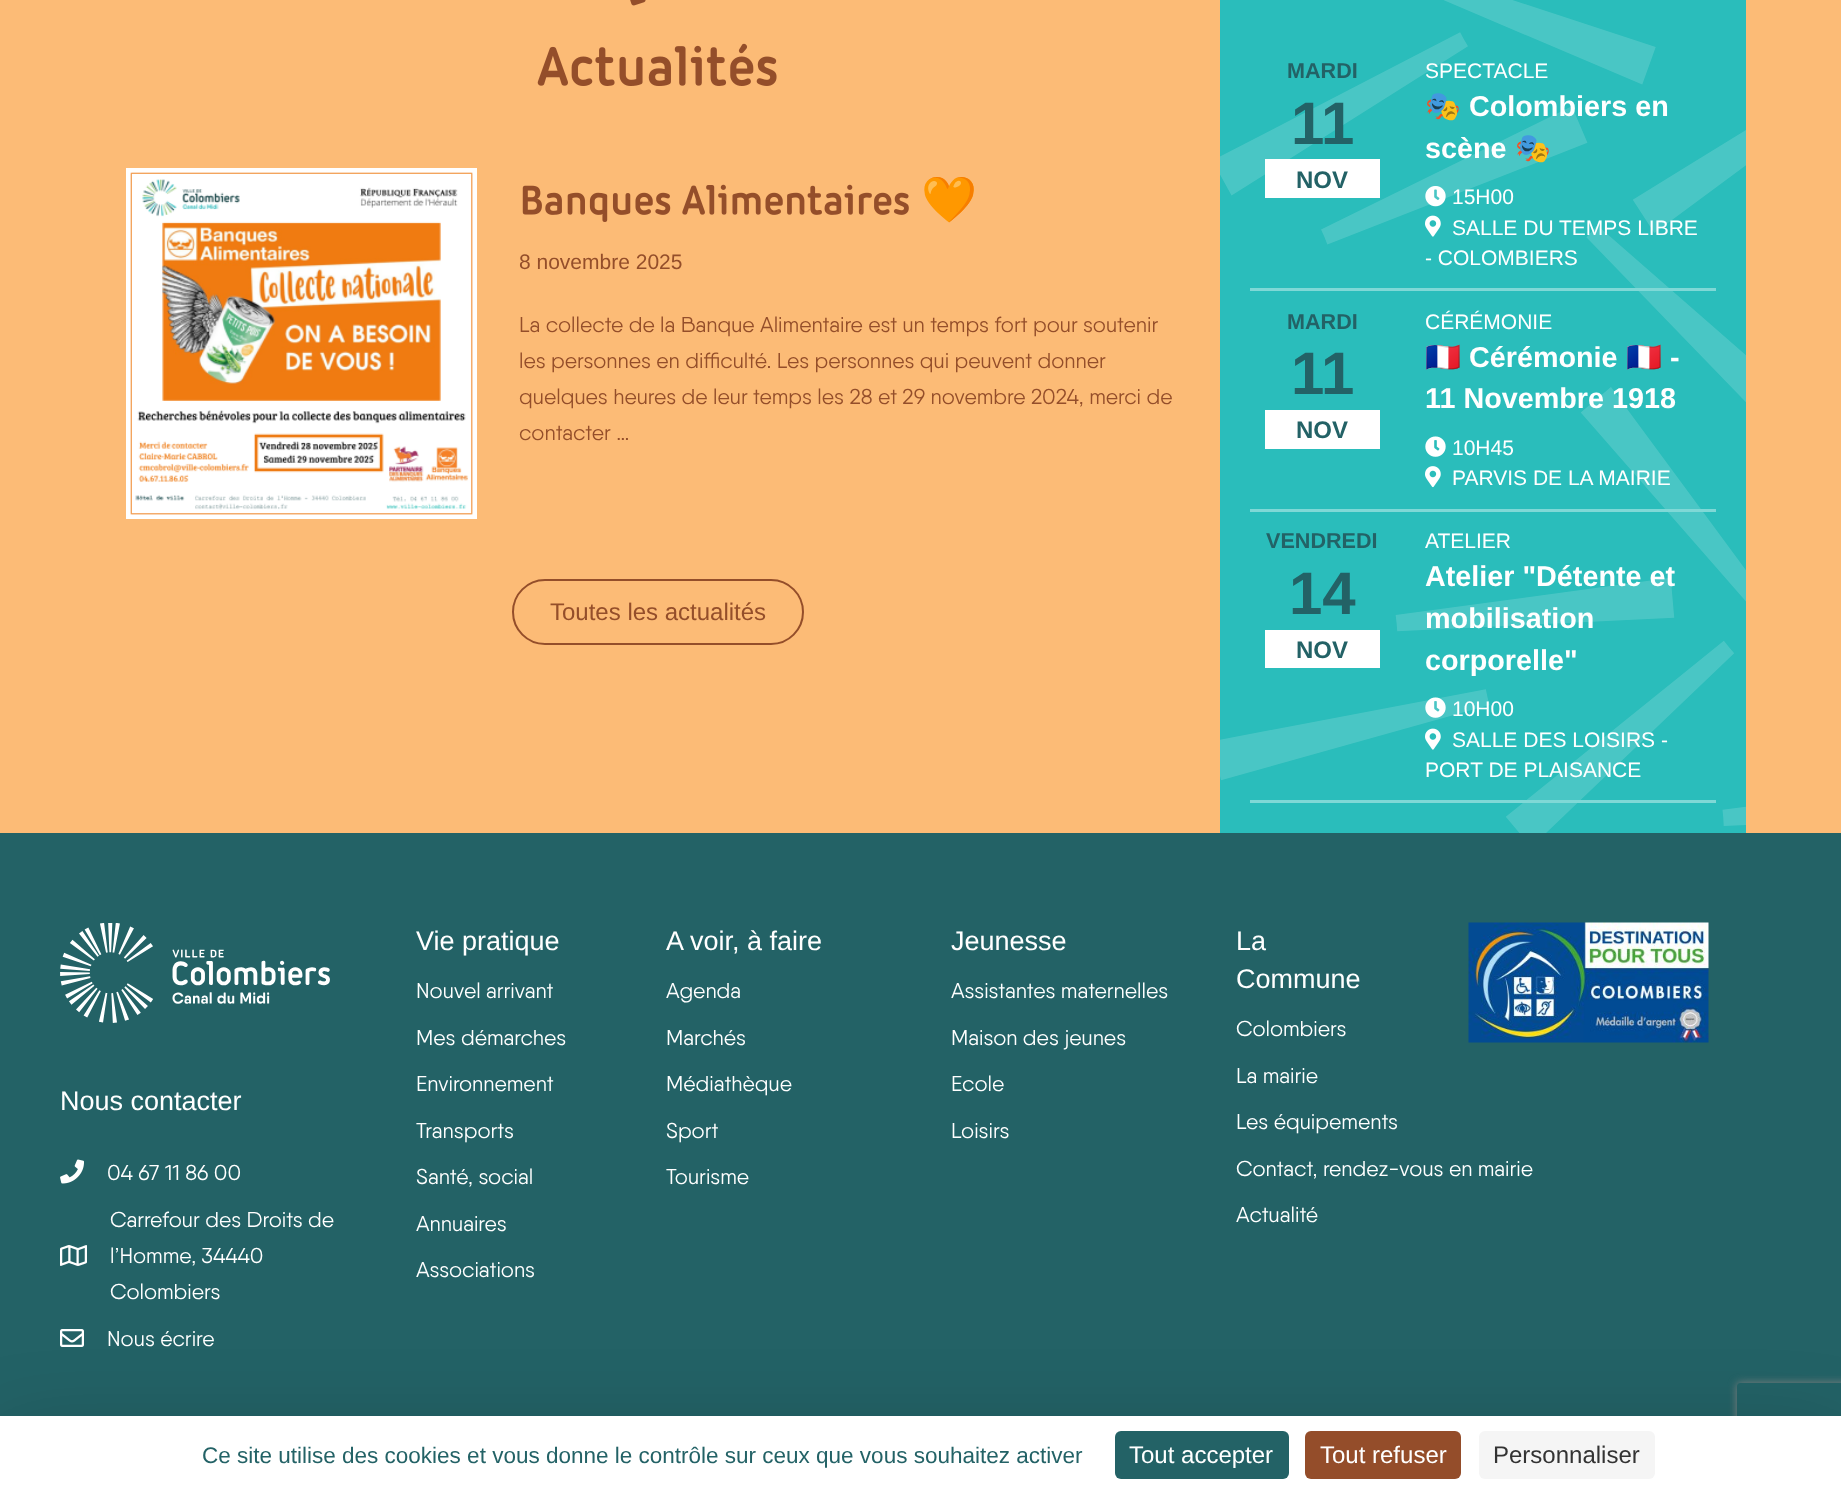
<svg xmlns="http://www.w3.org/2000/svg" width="1841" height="1493">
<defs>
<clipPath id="clip1"><path d="M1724 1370h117v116h-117zm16 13h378c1.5 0 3 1.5 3 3v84c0 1.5-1.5 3-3 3h-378c-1.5 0-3-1.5-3-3v-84c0-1.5 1.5-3 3-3z" clip-rule="evenodd"/></clipPath>
</defs>
<rect width="100%" height="100%" fill="#fcbb76"/>
<image x="630" y="0" width="16" height="6" href="media/1.png"/>
<image x="537" y="43" width="240" height="43" href="media/2.png"/>
<image x="126" y="168" width="351" height="351" href="media/3.png"/>
<image x="522" y="184" width="387" height="38" href="media/4.png"/>
<text x="921" y="215" style="font-family:Noto Color Emoji;font-size:45px;font-weight:bold;fill:#944e2a">🧡</text>
<text x="519" y="269" style="font-family:Liberation Sans;font-size:21px;fill:#944e2a">8 novembre 2025</text>
<text x="519" y="332" style="font-family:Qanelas;font-size:21.6px;fill:#944e2a">La collecte de la Banque Alimentaire est un temps fort pour soutenir</text>
<text x="519" y="368" style="font-family:Qanelas;font-size:21.6px;fill:#944e2a">les personnes en difficulté. Les personnes qui peuvent donner</text>
<text x="519" y="404" style="font-family:Qanelas;font-size:21.6px;fill:#944e2a">quelques heures de leur temps les 28 et 29 novembre 2024, merci de</text>
<text x="519" y="440" style="font-family:Qanelas;font-size:21.6px;fill:#944e2a">contacter …</text>
<rect x="513" y="580" width="290" height="64" rx="32" fill="none" stroke="#944e2a" stroke-width="2"/>
<text x="550" y="620" style="font-family:Liberation Sans;font-size:24px;fill:#944e2a">Toutes les actualités</text>
<rect x="1220" width="526" height="833" fill="#2abdbb"/>
<image x="1220" y="0" width="526" height="833" href="media/5.png"/>
<rect x="1250" y="288" width="466" height="3" fill="#7fd8d6"/>
<text x="1287" y="78" style="font-family:Liberation Sans;font-size:21.6px;font-weight:bold;fill:#236266">MARDI</text>
<text x="1291" y="144" style="font-family:Liberation Sans;font-size:60px;font-weight:bold;fill:#236266">11</text>
<rect x="1265" y="159" width="115" height="39" fill="#fff"/>
<text x="1296" y="188" style="font-family:Liberation Sans;font-size:24px;font-weight:bold;fill:#236266">NOV</text>
<text x="1425" y="78" style="font-family:Liberation Sans;font-size:21px;fill:#fff">SPECTACLE</text>
<text x="1425" y="116" style="font-family:Noto Color Emoji;font-size:28.75px;font-weight:bold;fill:#fff">🎭</text>
<text x="1469" y="116" style="font-family:Liberation Sans;font-size:28.75px;font-weight:bold;fill:#fff">Colombiers en</text>
<text x="1425" y="158" style="font-family:Liberation Sans;font-size:28.75px;font-weight:bold;fill:#fff">scène</text>
<text x="1515" y="158" style="font-family:Noto Color Emoji;font-size:28.75px;font-weight:bold;fill:#fff">🎭</text>
<image x="1425" y="186" width="21" height="21" href="media/6.png"/>
<text x="1452" y="204" style="font-family:Liberation Sans;font-size:21px;fill:#fff">15H00</text>
<image x="1425" y="215" width="16" height="22" href="media/7.png"/>
<text x="1452" y="235" style="font-family:Liberation Sans;font-size:21px;fill:#fff">SALLE DU TEMPS LIBRE</text>
<text x="1425" y="265" style="font-family:Liberation Sans;font-size:21px;fill:#fff">- COLOMBIERS</text>
<rect x="1250" y="509" width="466" height="3" fill="#7fd8d6"/>
<text x="1287" y="329" style="font-family:Liberation Sans;font-size:21.6px;font-weight:bold;fill:#236266">MARDI</text>
<text x="1291" y="394" style="font-family:Liberation Sans;font-size:60px;font-weight:bold;fill:#236266">11</text>
<rect x="1265" y="410" width="115" height="39" fill="#fff"/>
<text x="1296" y="438" style="font-family:Liberation Sans;font-size:24px;font-weight:bold;fill:#236266">NOV</text>
<text x="1425" y="329" style="font-family:Liberation Sans;font-size:21px;fill:#fff">CÉRÉMONIE</text>
<text x="1425" y="367" style="font-family:Noto Color Emoji;font-size:28.75px;font-weight:bold;fill:#fff">🇫🇷</text>
<text x="1469" y="367" style="font-family:Liberation Sans;font-size:28.75px;font-weight:bold;fill:#fff">Cérémonie</text>
<text x="1626" y="367" style="font-family:Noto Color Emoji;font-size:28.75px;font-weight:bold;fill:#fff">🇫🇷</text>
<text x="1670" y="367" style="font-family:Liberation Sans;font-size:28.75px;font-weight:bold;fill:#fff">-</text>
<text x="1425" y="408" style="font-family:Liberation Sans;font-size:28.75px;font-weight:bold;fill:#fff">11 Novembre 1918</text>
<image x="1425" y="436" width="21" height="21" href="media/8.png"/>
<text x="1452" y="455" style="font-family:Liberation Sans;font-size:21px;fill:#fff">10H45</text>
<image x="1425" y="466" width="16" height="22" href="media/9.png"/>
<text x="1452" y="485" style="font-family:Liberation Sans;font-size:21px;fill:#fff">PARVIS DE LA MAIRIE</text>
<rect x="1250" y="800" width="466" height="3" fill="#7fd8d6"/>
<text x="1266" y="548" style="font-family:Liberation Sans;font-size:21.6px;font-weight:bold;fill:#236266">VENDREDI</text>
<text x="1289" y="614" style="font-family:Liberation Sans;font-size:60px;font-weight:bold;fill:#236266">14</text>
<rect x="1265" y="630" width="115" height="38" fill="#fff"/>
<text x="1296" y="658" style="font-family:Liberation Sans;font-size:24px;font-weight:bold;fill:#236266">NOV</text>
<text x="1425" y="548" style="font-family:Liberation Sans;font-size:21px;fill:#fff">ATELIER</text>
<text x="1425" y="586" style="font-family:Liberation Sans;font-size:28.75px;font-weight:bold;fill:#fff">Atelier "Détente et</text>
<text x="1425" y="628" style="font-family:Liberation Sans;font-size:28.75px;font-weight:bold;fill:#fff">mobilisation</text>
<text x="1425" y="670" style="font-family:Liberation Sans;font-size:28.75px;font-weight:bold;fill:#fff">corporelle"</text>
<image x="1425" y="697" width="21" height="21" href="media/10.png"/>
<text x="1452" y="716" style="font-family:Liberation Sans;font-size:21px;fill:#fff">10H00</text>
<image x="1425" y="728" width="16" height="22" href="media/7.png"/>
<text x="1452" y="747" style="font-family:Liberation Sans;font-size:21px;fill:#fff">SALLE DES LOISIRS -</text>
<text x="1425" y="777" style="font-family:Liberation Sans;font-size:21px;fill:#fff">PORT DE PLAISANCE</text>
<rect y="833" width="1841" height="583" fill="#236266"/>
<image x="60" y="923" width="270" height="100" href="media/11.png"/>
<text x="60" y="1110" style="font-family:Liberation Sans;font-size:27px;fill:#fff">Nous contacter</text>
<image x="60" y="1159" width="24" height="25" href="media/12.png"/>
<text x="107" y="1180" style="font-family:Qanelas;font-size:21.6px;fill:#fff">04 67 11 86 00</text>
<image x="60" y="1245" width="27" height="21" href="media/13.png"/>
<text x="110" y="1227" style="font-family:Qanelas;font-size:21.6px;fill:#fff">Carrefour des Droits de</text>
<text x="110" y="1263" style="font-family:Qanelas;font-size:21.6px;fill:#fff">l’Homme, 34440</text>
<text x="110" y="1299" style="font-family:Qanelas;font-size:21.6px;fill:#fff">Colombiers</text>
<image x="60" y="1329" width="24" height="18" href="media/14.png"/>
<text x="107" y="1346" style="font-family:Qanelas;font-size:21.6px;fill:#fff">Nous écrire</text>
<text x="416" y="950" style="font-family:Liberation Sans;font-size:27px;fill:#fff">Vie pratique</text>
<text x="416" y="998" style="font-family:Qanelas;font-size:21.6px;fill:#fff">Nouvel arrivant</text>
<text x="416" y="1045" style="font-family:Qanelas;font-size:21.6px;fill:#fff">Mes démarches</text>
<text x="416" y="1091" style="font-family:Qanelas;font-size:21.6px;fill:#fff">Environnement</text>
<text x="416" y="1138" style="font-family:Qanelas;font-size:21.6px;fill:#fff">Transports</text>
<text x="416" y="1184" style="font-family:Qanelas;font-size:21.6px;fill:#fff">Santé, social</text>
<text x="416" y="1231" style="font-family:Qanelas;font-size:21.6px;fill:#fff">Annuaires</text>
<text x="416" y="1277" style="font-family:Qanelas;font-size:21.6px;fill:#fff">Associations</text>
<text x="666" y="950" style="font-family:Liberation Sans;font-size:27px;fill:#fff">A voir, à faire</text>
<text x="666" y="998" style="font-family:Qanelas;font-size:21.6px;fill:#fff">Agenda</text>
<text x="666" y="1045" style="font-family:Qanelas;font-size:21.6px;fill:#fff">Marchés</text>
<text x="666" y="1091" style="font-family:Qanelas;font-size:21.6px;fill:#fff">Médiathèque</text>
<text x="666" y="1138" style="font-family:Qanelas;font-size:21.6px;fill:#fff">Sport</text>
<text x="666" y="1184" style="font-family:Qanelas;font-size:21.6px;fill:#fff">Tourisme</text>
<text x="951" y="950" style="font-family:Liberation Sans;font-size:27px;fill:#fff">Jeunesse</text>
<text x="951" y="998" style="font-family:Qanelas;font-size:21.6px;fill:#fff">Assistantes maternelles</text>
<text x="951" y="1045" style="font-family:Qanelas;font-size:21.6px;fill:#fff">Maison des jeunes</text>
<text x="951" y="1091" style="font-family:Qanelas;font-size:21.6px;fill:#fff">Ecole</text>
<text x="951" y="1138" style="font-family:Qanelas;font-size:21.6px;fill:#fff">Loisirs</text>
<text x="1236" y="950" style="font-family:Liberation Sans;font-size:27px;fill:#fff">La</text>
<text x="1236" y="988" style="font-family:Liberation Sans;font-size:27px;fill:#fff">Commune</text>
<text x="1236" y="1036" style="font-family:Qanelas;font-size:21.6px;fill:#fff">Colombiers</text>
<text x="1236" y="1083" style="font-family:Qanelas;font-size:21.6px;fill:#fff">La mairie</text>
<text x="1236" y="1129" style="font-family:Qanelas;font-size:21.6px;fill:#fff">Les équipements</text>
<text x="1236" y="1176" style="font-family:Qanelas;font-size:21.6px;fill:#fff">Contact, rendez-vous en mairie</text>
<text x="1236" y="1222" style="font-family:Qanelas;font-size:21.6px;fill:#fff">Actualité</text>
<image x="1468" y="922" width="241" height="121" href="media/15.png"/>
<rect y="1446" width="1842" height="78" fill="#00000040" filter="blur(45px)"/>
<g clip-path="url(#clip1)">
<rect x="1737" y="1383" width="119" height="90" rx="3" fill="#808080" filter="blur(4px)"/>
</g>
<rect y="1416" width="1841" height="77" fill="#fff"/>
<text x="202" y="1463" style="font-family:Liberation Sans;font-size:22.5px;fill:#236266">Ce site utilise des cookies et vous donne le contrôle sur ceux que vous souhaitez activer</text>
<rect x="1115" y="1431" width="174" height="48" rx="6" fill="#236266"/>
<text x="1129" y="1463" style="font-family:Liberation Sans;font-size:24px;fill:#fff">Tout accepter</text>
<rect x="1305" y="1431" width="156" height="48" rx="6" fill="#944d2a"/>
<text x="1320" y="1463" style="font-family:Liberation Sans;font-size:24px;fill:#fff">Tout refuser</text>
<rect x="1479" y="1431" width="176" height="48" rx="6" fill="#f5f5f5"/>
<text x="1493" y="1463" style="font-family:Liberation Sans;font-size:24px;fill:#333">Personnaliser</text>
</svg>
